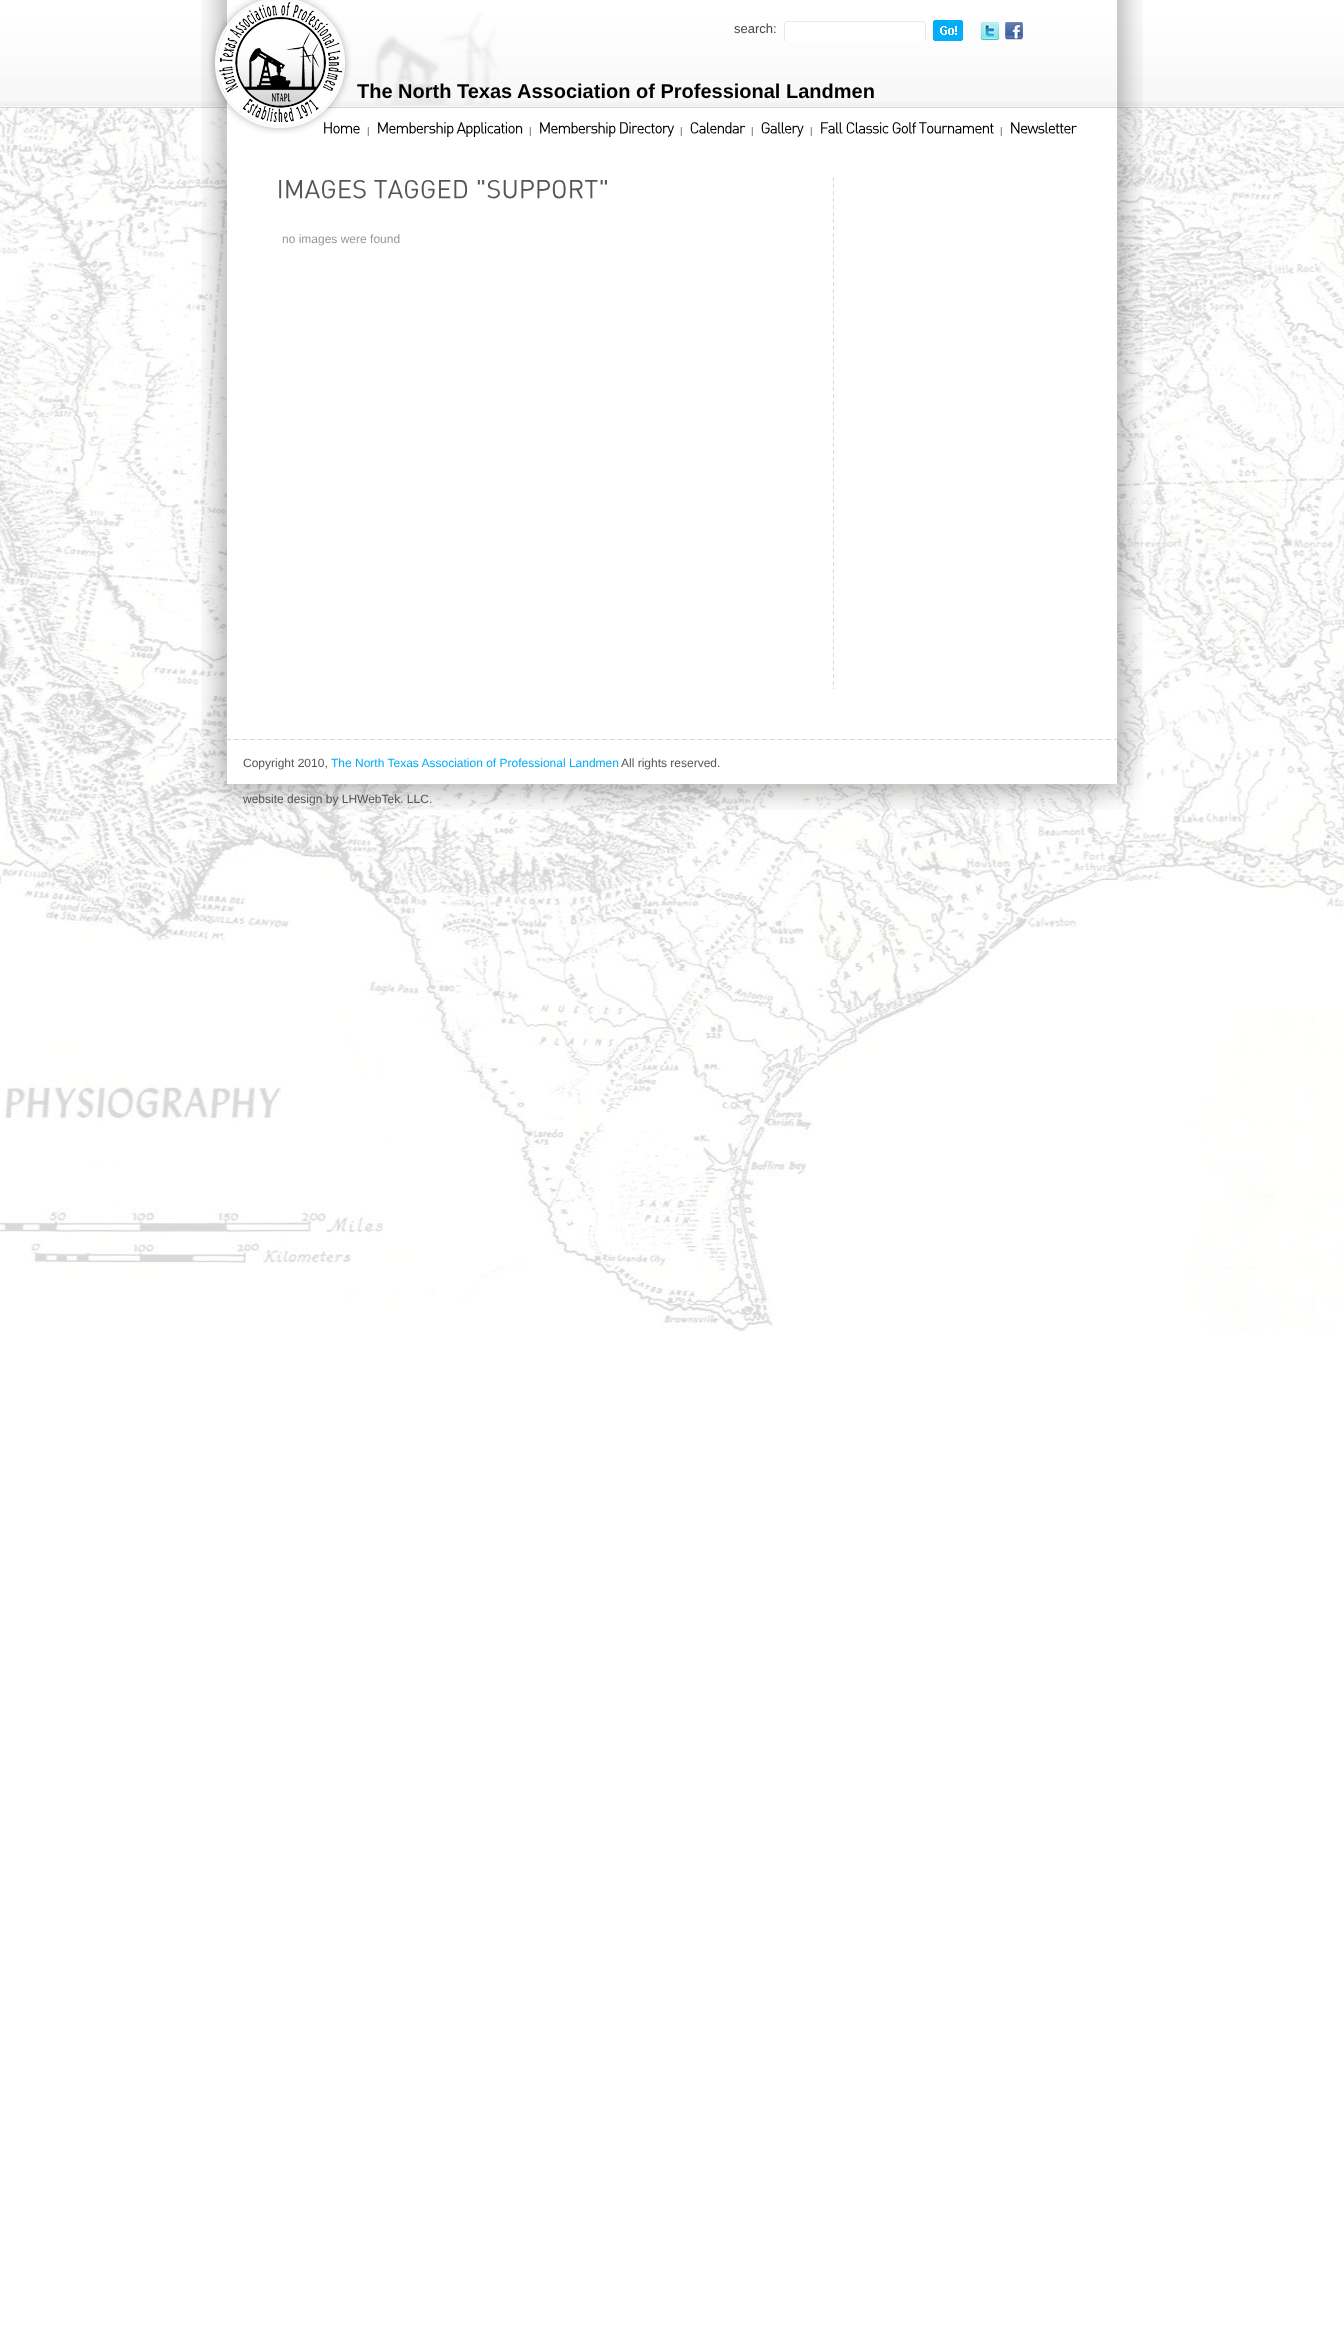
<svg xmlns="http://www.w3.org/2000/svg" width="1344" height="2350">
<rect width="100%" height="100%" fill="#fff"/>
<image x="0" y="108" width="1344" height="1224" href="media/1.png"/>
<image x="0" y="0" width="1344" height="108" href="media/2.png"/>
<image x="201" y="0" width="942" height="739" href="media/3.png"/>
<image x="315" y="11" width="802" height="97" href="media/4.png"/>
<text x="734" y="33" style="font-family:Liberation Sans;font-size:13px;fill:#464545">search:</text>
<image x="784" y="21" width="142" height="20" href="media/5.png"/>
<image x="933" y="20" width="30" height="21" href="media/6.png"/>
<image x="980" y="22" width="19" height="19" href="media/7.png"/>
<image x="1005" y="22" width="18" height="18" href="media/8.png"/>
<image x="209" y="0" width="142" height="109" href="media/9.png"/>
<text x="357" y="98" style="font-family:Liberation Sans;font-size:20px;font-weight:bold;fill:#000">The North Texas Association of Professional Landmen</text>
<rect x="227" y="108" width="109" height="1" fill="#fff"/>
<image x="227" y="108" width="109" height="26" href="media/10.png"/>
<image x="324" y="122" width="36" height="12" href="media/11.png"/>
<image x="367" y="127" width="2" height="9" href="media/12.png"/>
<image x="378" y="122" width="76" height="15" href="media/13.png"/>
<image x="456" y="122" width="67" height="15" href="media/14.png"/>
<image x="529" y="127" width="2" height="9" href="media/12.png"/>
<image x="540" y="122" width="76" height="15" href="media/13.png"/>
<image x="620" y="122" width="54" height="15" href="media/15.png"/>
<image x="680" y="127" width="2" height="9" href="media/12.png"/>
<image x="690" y="122" width="56" height="12" href="media/16.png"/>
<image x="751" y="127" width="2" height="9" href="media/12.png"/>
<image x="761" y="122" width="43" height="15" href="media/17.png"/>
<image x="810" y="127" width="2" height="9" href="media/12.png"/>
<image x="821" y="122" width="22" height="12" href="media/18.png"/>
<image x="846" y="122" width="43" height="12" href="media/19.png"/>
<image x="892" y="122" width="24" height="12" href="media/20.png"/>
<image x="919" y="122" width="75" height="12" href="media/21.png"/>
<image x="1000" y="127" width="2" height="9" href="media/12.png"/>
<image x="1011" y="122" width="66" height="12" href="media/22.png"/>
<image x="279" y="180" width="87" height="19" href="media/23.png"/>
<image x="374" y="180" width="94" height="19" href="media/24.png"/>
<image x="477" y="180" width="130" height="19" href="media/25.png"/>
<text x="282" y="243" style="font-family:Liberation Sans;font-size:12px;fill:#999898">no images were found</text>
<image x="833" y="177" width="1" height="512" href="media/26.png"/>
<image x="201" y="739" width="942" height="71" href="media/27.png"/>
<image x="203" y="739" width="915" height="1" href="media/28.png"/>
<text x="243" y="767" style="font-family:Liberation Sans;font-size:12px;fill:#555">Copyright 2010,</text>
<text x="331" y="767" style="font-family:Liberation Sans;font-size:12px;fill:#02adf9">The North Texas Association of Professional Landmen</text>
<text x="621" y="767" style="font-family:Liberation Sans;font-size:12px;fill:#555">All rights reserved.</text>
<text x="243" y="803" style="font-family:Liberation Sans;font-size:12px;fill:#555">website design by LHWebTek. LLC.</text>
</svg>
